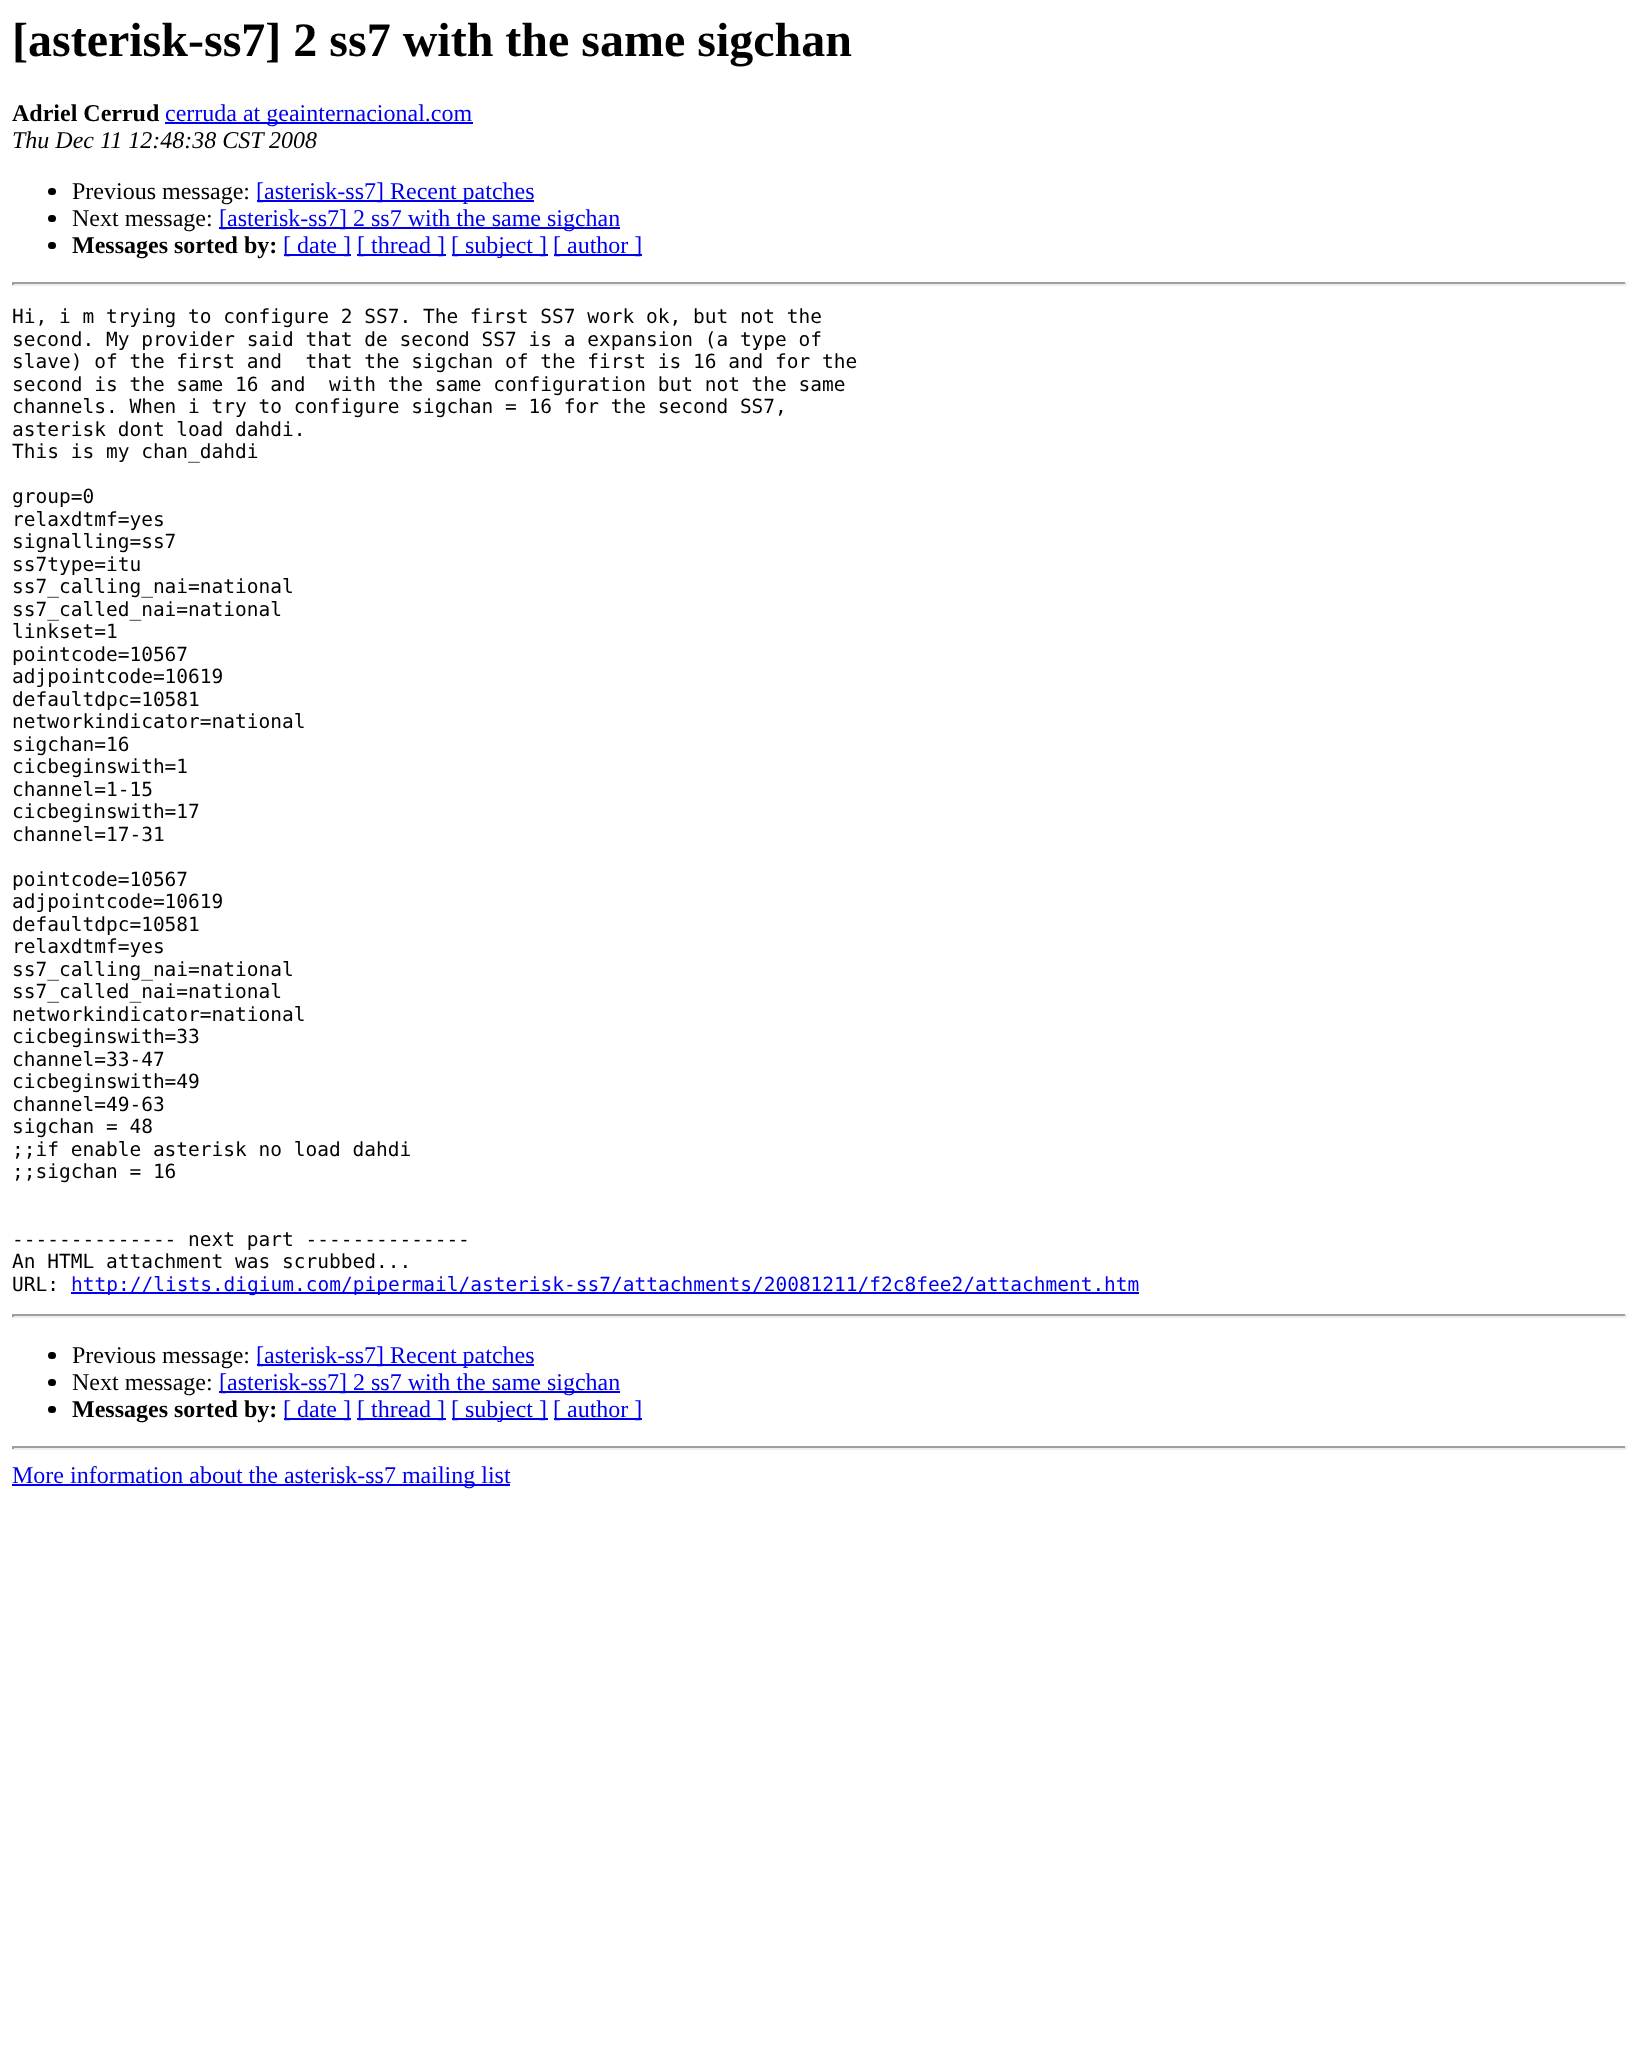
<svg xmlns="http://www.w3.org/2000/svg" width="1638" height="2072">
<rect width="100%" height="100%" fill="#fff"/>
<text x="12" y="56" style="font-family:Liberation Serif;font-size:48px;font-weight:bold;fill:#000">[asterisk-ss7] 2 ss7 with the same sigchan</text>
<text x="12" y="121" style="font-family:Liberation Serif;font-size:24px;font-weight:bold;fill:#000">Adriel Cerrud</text>
<rect x="165" y="122" width="308" height="2" fill="#00e"/>
<text x="165" y="121" style="font-family:Liberation Serif;font-size:24px;fill:#00e">cerruda at geainternacional.com</text>
<text x="12" y="148" style="font-family:Liberation Serif;font-size:24px;font-style:italic;fill:#000">Thu Dec 11 12:48:38 CST 2008</text>
<rect x="48" y="188" width="8" height="7" rx="3.5" fill="#000"/>
<text x="72" y="199" style="font-family:Liberation Serif;font-size:24px;fill:#000">Previous message:</text>
<rect x="257" y="200" width="277" height="2" fill="#00e"/>
<text x="256" y="199" style="font-family:Liberation Serif;font-size:24px;fill:#00e">[asterisk-ss7] Recent patches</text>
<rect x="48" y="215" width="8" height="7" rx="3.5" fill="#000"/>
<text x="72" y="226" style="font-family:Liberation Serif;font-size:24px;fill:#000">Next message:</text>
<rect x="219" y="227" width="401" height="2" fill="#00e"/>
<text x="219" y="226" style="font-family:Liberation Serif;font-size:24px;fill:#00e">[asterisk-ss7] 2 ss7 with the same sigchan</text>
<rect x="48" y="242" width="8" height="7" rx="3.5" fill="#000"/>
<text x="72" y="253" style="font-family:Liberation Serif;font-size:24px;font-weight:bold;fill:#000">Messages sorted by:</text>
<rect x="284" y="254" width="67" height="2" fill="#00e"/>
<text x="283" y="253" style="font-family:Liberation Serif;font-size:24px;fill:#00e">[ date ]</text>
<rect x="357" y="254" width="89" height="2" fill="#00e"/>
<text x="357" y="253" style="font-family:Liberation Serif;font-size:24px;fill:#00e">[ thread ]</text>
<rect x="452" y="254" width="96" height="2" fill="#00e"/>
<text x="451" y="253" style="font-family:Liberation Serif;font-size:24px;fill:#00e">[ subject ]</text>
<rect x="554" y="254" width="88" height="2" fill="#00e"/>
<text x="553" y="253" style="font-family:Liberation Serif;font-size:24px;fill:#00e">[ author ]</text>
<rect x="12" y="282" width="1614" height="2" fill="#9f9f9f"/>
<rect x="1625" y="282" width="2" height="3" fill="#eee"/>
<rect x="12" y="284" width="1614" height="2" fill="#eee"/>
<rect x="12" y="282" width="2" height="3" fill="#9f9f9f"/>
<text x="12" y="323" style="font-family:DejaVu Sans Mono;font-size:19.5px;fill:#000">Hi, i m trying to configure 2 SS7. The first SS7 work ok, but not the</text>
<text x="12" y="346" style="font-family:DejaVu Sans Mono;font-size:19.5px;fill:#000">second. My provider said that de second SS7 is a expansion (a type of</text>
<text x="12" y="368" style="font-family:DejaVu Sans Mono;font-size:19.5px;fill:#000" xml:space="preserve">slave) of the first and  that the sigchan of the first is 16 and for the</text>
<text x="12" y="391" style="font-family:DejaVu Sans Mono;font-size:19.5px;fill:#000" xml:space="preserve">second is the same 16 and  with the same configuration but not the same</text>
<text x="12" y="413" style="font-family:DejaVu Sans Mono;font-size:19.5px;fill:#000">channels. When i try to configure sigchan = 16 for the second SS7,</text>
<text x="12" y="436" style="font-family:DejaVu Sans Mono;font-size:19.5px;fill:#000">asterisk dont load dahdi.</text>
<text x="12" y="458" style="font-family:DejaVu Sans Mono;font-size:19.5px;fill:#000">This is my chan_dahdi</text>
<text x="12" y="503" style="font-family:DejaVu Sans Mono;font-size:19.5px;fill:#000">group=0</text>
<text x="12" y="526" style="font-family:DejaVu Sans Mono;font-size:19.5px;fill:#000">relaxdtmf=yes</text>
<text x="12" y="548" style="font-family:DejaVu Sans Mono;font-size:19.5px;fill:#000">signalling=ss7</text>
<text x="12" y="571" style="font-family:DejaVu Sans Mono;font-size:19.5px;fill:#000">ss7type=itu</text>
<text x="12" y="593" style="font-family:DejaVu Sans Mono;font-size:19.5px;fill:#000">ss7_calling_nai=national</text>
<text x="12" y="616" style="font-family:DejaVu Sans Mono;font-size:19.5px;fill:#000">ss7_called_nai=national</text>
<text x="12" y="638" style="font-family:DejaVu Sans Mono;font-size:19.5px;fill:#000">linkset=1</text>
<text x="12" y="661" style="font-family:DejaVu Sans Mono;font-size:19.5px;fill:#000">pointcode=10567</text>
<text x="12" y="683" style="font-family:DejaVu Sans Mono;font-size:19.5px;fill:#000">adjpointcode=10619</text>
<text x="12" y="706" style="font-family:DejaVu Sans Mono;font-size:19.5px;fill:#000">defaultdpc=10581</text>
<text x="12" y="728" style="font-family:DejaVu Sans Mono;font-size:19.5px;fill:#000">networkindicator=national</text>
<text x="12" y="751" style="font-family:DejaVu Sans Mono;font-size:19.5px;fill:#000">sigchan=16</text>
<text x="12" y="773" style="font-family:DejaVu Sans Mono;font-size:19.5px;fill:#000">cicbeginswith=1</text>
<text x="12" y="796" style="font-family:DejaVu Sans Mono;font-size:19.5px;fill:#000">channel=1-15</text>
<text x="12" y="818" style="font-family:DejaVu Sans Mono;font-size:19.5px;fill:#000">cicbeginswith=17</text>
<text x="12" y="841" style="font-family:DejaVu Sans Mono;font-size:19.5px;fill:#000">channel=17-31</text>
<text x="12" y="886" style="font-family:DejaVu Sans Mono;font-size:19.5px;fill:#000">pointcode=10567</text>
<text x="12" y="908" style="font-family:DejaVu Sans Mono;font-size:19.5px;fill:#000">adjpointcode=10619</text>
<text x="12" y="931" style="font-family:DejaVu Sans Mono;font-size:19.5px;fill:#000">defaultdpc=10581</text>
<text x="12" y="953" style="font-family:DejaVu Sans Mono;font-size:19.5px;fill:#000">relaxdtmf=yes</text>
<text x="12" y="976" style="font-family:DejaVu Sans Mono;font-size:19.5px;fill:#000">ss7_calling_nai=national</text>
<text x="12" y="998" style="font-family:DejaVu Sans Mono;font-size:19.5px;fill:#000">ss7_called_nai=national</text>
<text x="12" y="1021" style="font-family:DejaVu Sans Mono;font-size:19.5px;fill:#000">networkindicator=national</text>
<text x="12" y="1043" style="font-family:DejaVu Sans Mono;font-size:19.5px;fill:#000">cicbeginswith=33</text>
<text x="12" y="1066" style="font-family:DejaVu Sans Mono;font-size:19.5px;fill:#000">channel=33-47</text>
<text x="12" y="1088" style="font-family:DejaVu Sans Mono;font-size:19.5px;fill:#000">cicbeginswith=49</text>
<text x="12" y="1111" style="font-family:DejaVu Sans Mono;font-size:19.5px;fill:#000">channel=49-63</text>
<text x="12" y="1133" style="font-family:DejaVu Sans Mono;font-size:19.5px;fill:#000">sigchan = 48</text>
<text x="12" y="1156" style="font-family:DejaVu Sans Mono;font-size:19.5px;fill:#000">;;if enable asterisk no load dahdi</text>
<text x="12" y="1178" style="font-family:DejaVu Sans Mono;font-size:19.5px;fill:#000">;;sigchan = 16</text>
<text x="12" y="1246" style="font-family:DejaVu Sans Mono;font-size:19.5px;fill:#000">-------------- next part --------------</text>
<text x="12" y="1268" style="font-family:DejaVu Sans Mono;font-size:19.5px;fill:#000">An HTML attachment was scrubbed...</text>
<text x="12" y="1291" style="font-family:DejaVu Sans Mono;font-size:19.5px;fill:#000">URL:</text>
<rect x="71" y="1292" width="1068" height="2" fill="#00e"/>
<text x="71" y="1291" style="font-family:DejaVu Sans Mono;font-size:19.5px;fill:#00e">http://lists.digium.com/pipermail/asterisk-ss7/attachments/20081211/f2c8fee2/attachment.htm</text>
<rect x="12" y="1314" width="1614" height="2" fill="#9f9f9f"/>
<rect x="1625" y="1314" width="2" height="3" fill="#eee"/>
<rect x="12" y="1316" width="1614" height="2" fill="#eee"/>
<rect x="12" y="1314" width="2" height="3" fill="#9f9f9f"/>
<rect x="48" y="1352" width="8" height="7" rx="3.5" fill="#000"/>
<text x="72" y="1363" style="font-family:Liberation Serif;font-size:24px;fill:#000">Previous message:</text>
<rect x="257" y="1364" width="277" height="2" fill="#00e"/>
<text x="256" y="1363" style="font-family:Liberation Serif;font-size:24px;fill:#00e">[asterisk-ss7] Recent patches</text>
<rect x="48" y="1379" width="8" height="7" rx="3.5" fill="#000"/>
<text x="72" y="1390" style="font-family:Liberation Serif;font-size:24px;fill:#000">Next message:</text>
<rect x="219" y="1391" width="401" height="2" fill="#00e"/>
<text x="219" y="1390" style="font-family:Liberation Serif;font-size:24px;fill:#00e">[asterisk-ss7] 2 ss7 with the same sigchan</text>
<rect x="48" y="1406" width="8" height="7" rx="3.5" fill="#000"/>
<text x="72" y="1417" style="font-family:Liberation Serif;font-size:24px;font-weight:bold;fill:#000">Messages sorted by:</text>
<rect x="284" y="1418" width="67" height="2" fill="#00e"/>
<text x="283" y="1417" style="font-family:Liberation Serif;font-size:24px;fill:#00e">[ date ]</text>
<rect x="357" y="1418" width="89" height="2" fill="#00e"/>
<text x="357" y="1417" style="font-family:Liberation Serif;font-size:24px;fill:#00e">[ thread ]</text>
<rect x="452" y="1418" width="96" height="2" fill="#00e"/>
<text x="451" y="1417" style="font-family:Liberation Serif;font-size:24px;fill:#00e">[ subject ]</text>
<rect x="554" y="1418" width="88" height="2" fill="#00e"/>
<text x="553" y="1417" style="font-family:Liberation Serif;font-size:24px;fill:#00e">[ author ]</text>
<rect x="12" y="1446" width="1614" height="2" fill="#9f9f9f"/>
<rect x="1625" y="1446" width="2" height="3" fill="#eee"/>
<rect x="12" y="1448" width="1614" height="2" fill="#eee"/>
<rect x="12" y="1446" width="2" height="3" fill="#9f9f9f"/>
<rect x="12" y="1484" width="498" height="2" fill="#00e"/>
<text x="12" y="1483" style="font-family:Liberation Serif;font-size:24px;fill:#00e">More information about the asterisk-ss7 mailing list</text>
</svg>
